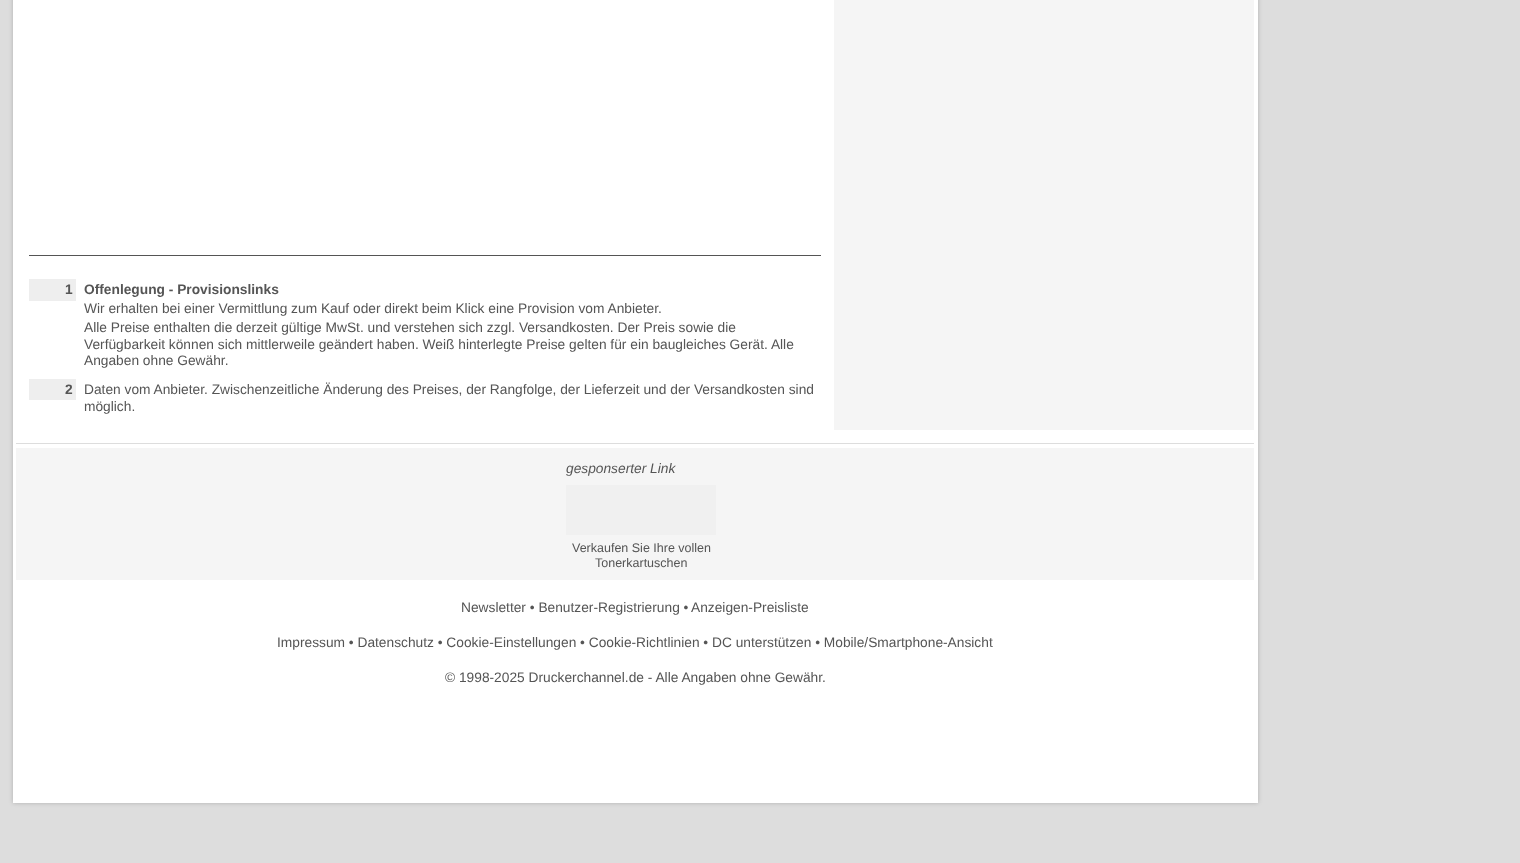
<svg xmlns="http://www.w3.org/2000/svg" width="1520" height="863">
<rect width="100%" height="100%" fill="#ddd"/>
<rect x="13" y="-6" width="1245" height="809" fill="#00000033" filter="blur(2px)"/>
<rect x="13" width="1245" height="803" fill="#fff"/>
<rect x="29" y="255" width="792" height="1" fill="#555"/>
<rect x="29" y="279" width="47" height="22" fill="#eee"/>
<text x="65" y="294" style="font-family:Liberation Sans;font-size:13.75px;font-weight:bold;fill:#555">1</text>
<text x="84" y="294" style="font-family:Liberation Sans;font-size:13.75px;font-weight:bold;fill:#555">Offenlegung - Provisionslinks</text>
<text x="84" y="313" style="font-family:Liberation Sans;font-size:13.75px;fill:#555">Wir erhalten bei einer Vermittlung zum Kauf oder direkt beim Klick eine Provision vom Anbieter.</text>
<text x="84" y="332" style="font-family:Liberation Sans;font-size:13.75px;fill:#555">Alle Preise enthalten die derzeit gültige MwSt. und verstehen sich zzgl. Versandkosten. Der Preis sowie die</text>
<text x="84" y="349" style="font-family:Liberation Sans;font-size:13.75px;fill:#555">Verfügbarkeit können sich mittlerweile geändert haben. Weiß hinterlegte Preise gelten für ein baugleiches Gerät. Alle</text>
<text x="84" y="365" style="font-family:Liberation Sans;font-size:13.75px;fill:#555">Angaben ohne Gewähr.</text>
<rect x="29" y="379" width="47" height="21" fill="#eee"/>
<text x="65" y="394" style="font-family:Liberation Sans;font-size:13.75px;font-weight:bold;fill:#555">2</text>
<text x="84" y="394" style="font-family:Liberation Sans;font-size:13.75px;fill:#555">Daten vom Anbieter. Zwischenzeitliche Änderung des Preises, der Rangfolge, der Lieferzeit und der Versandkosten sind</text>
<text x="84" y="411" style="font-family:Liberation Sans;font-size:13.75px;fill:#555">möglich.</text>
<rect x="834" width="420" height="430" fill="#f5f5f5"/>
<rect x="16" y="443" width="1238" height="1" fill="#ddd"/>
<rect x="16" y="448" width="1238" height="132" fill="#f5f5f5"/>
<text x="566" y="473" style="font-family:Liberation Sans;font-size:13.75px;font-style:italic;fill:#555">gesponserter Link</text>
<rect x="566" y="485" width="150" height="50" fill="#f0f0f0"/>
<text x="572" y="552" style="font-family:Liberation Sans;font-size:12.5px;fill:#555">Verkaufen Sie Ihre vollen</text>
<text x="595" y="567" style="font-family:Liberation Sans;font-size:12.5px;fill:#555">Tonerkartuschen</text>
<text x="461" y="612" style="font-family:Liberation Sans;font-size:13.75px;fill:#555">Newsletter • Benutzer-Registrierung •</text>
<text x="691" y="612" style="font-family:Liberation Sans;font-size:13.75px;fill:#555">Anzeigen-Preisliste</text>
<text x="277" y="647" style="font-family:Liberation Sans;font-size:13.75px;fill:#555">Impressum • Datenschutz • Cookie-Einstellungen • Cookie-Richtlinien • DC unterstützen • Mobile/Smartphone-Ansicht</text>
<text x="445" y="682" style="font-family:Liberation Sans;font-size:13.75px;fill:#555">© 1998-2025 Druckerchannel.de - Alle Angaben ohne Gewähr.</text>
</svg>
